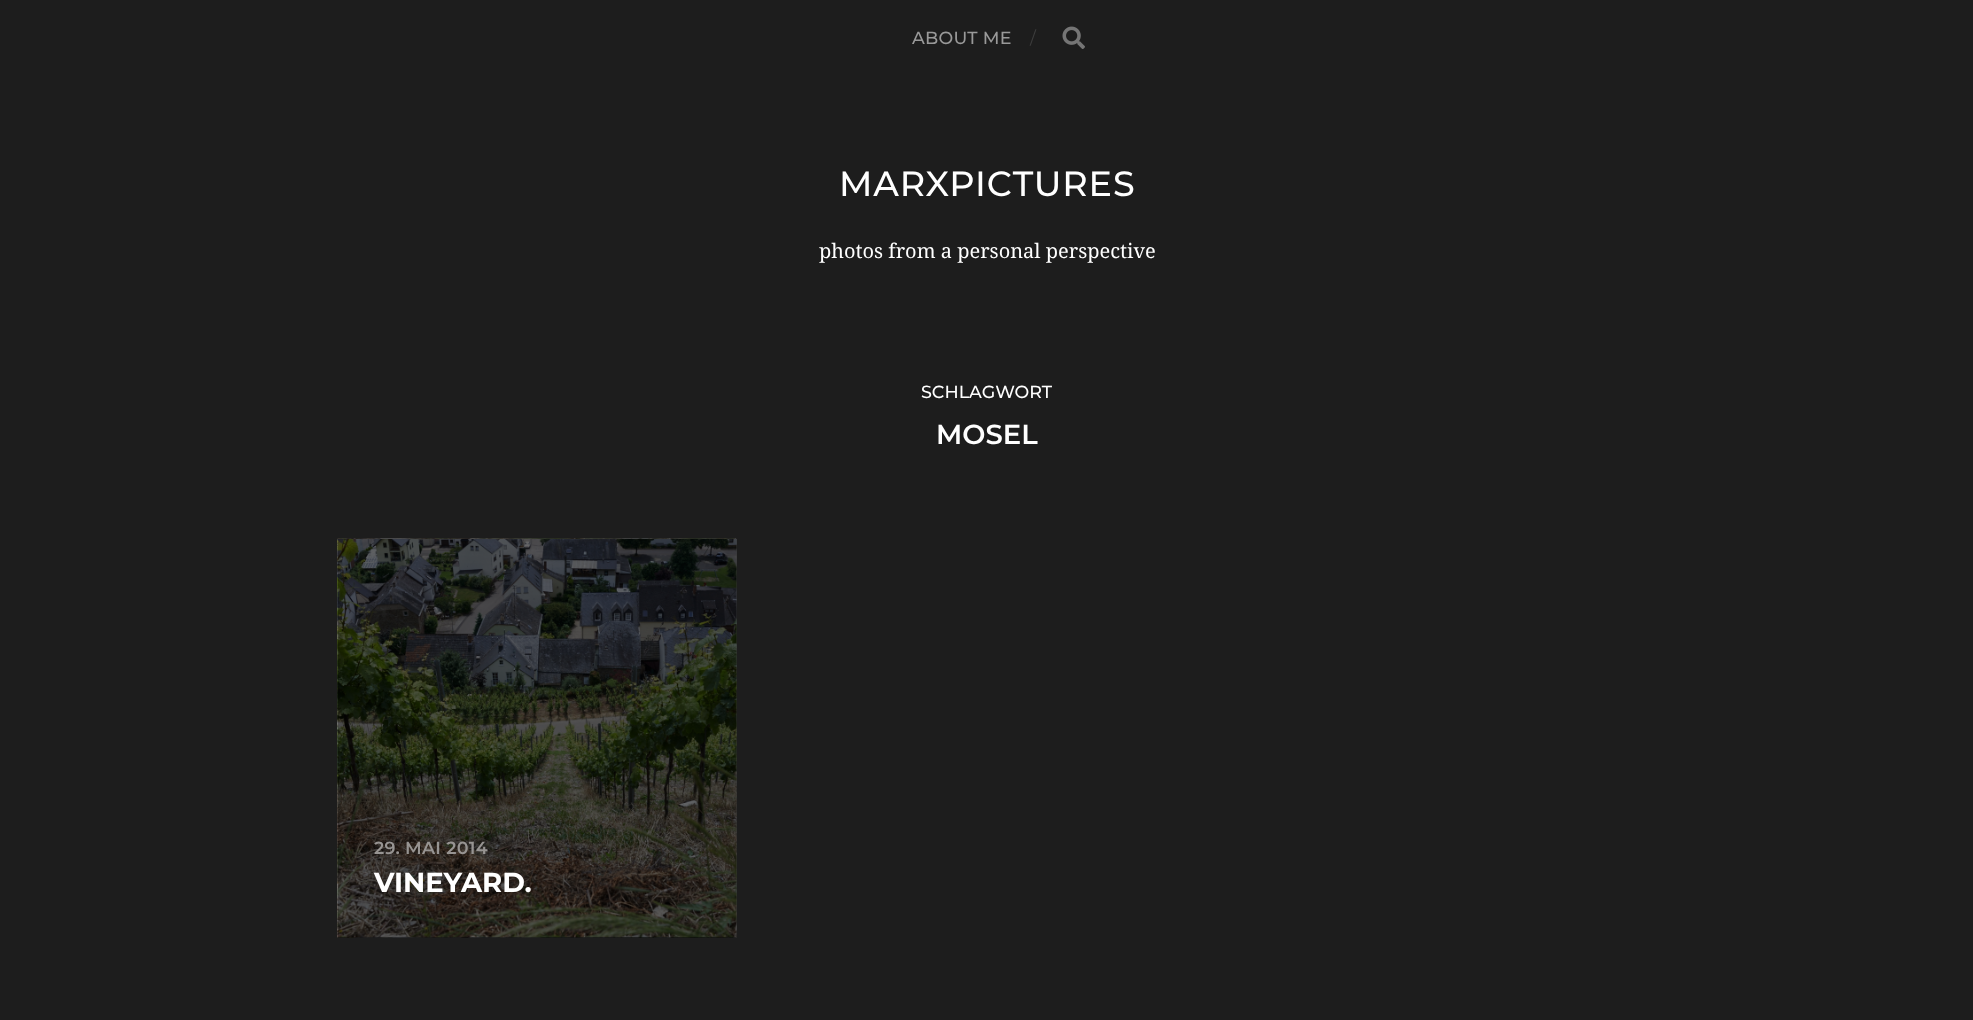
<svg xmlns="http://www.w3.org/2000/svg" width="1973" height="1020">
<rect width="100%" height="100%" fill="#1d1d1d"/>
<rect x="338" y="937" width="398" height="1" fill="#0c0c0c"/>
<text x="912" y="44" style="font-family:Montserrat;font-size:17.5px;font-weight:100;letter-spacing:0.25px;fill:#999">ABOUT ME</text>
<text x="1030" y="44" style="font-family:'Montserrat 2';font-size:17.5px;font-weight:100;fill:#3d3d3d">/</text>
<image x="1062" y="26" width="23" height="23" href="media/1.png"/>
<text x="839" y="196" style="font-family:Montserrat;font-size:35px;font-weight:100;letter-spacing:0.9px;fill:#fff">MARXPICTURES</text>
<text x="819" y="258" style="font-family:Droid Serif;font-size:20px;fill:#fff">photos from a personal perspective</text>
<text x="921" y="398" style="font-family:Montserrat;font-size:17.5px;font-weight:100;fill:#fff">SCHLAGWORT</text>
<text x="936" y="444" style="font-family:'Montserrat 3';font-size:27.5px;font-weight:100;fill:#fff">MOSEL</text>
<image x="337" y="538" width="400" height="400" href="media/2.png"/>
<text x="374" y="854" style="font-family:'Montserrat 3';font-size:17.5px;font-weight:100;letter-spacing:0.25px;fill:#979492">29. MAI 2014</text>
<text x="374" y="892" style="font-family:'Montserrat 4';font-size:27.5px;font-weight:100;fill:#fff">VINEYARD.</text>
</svg>
